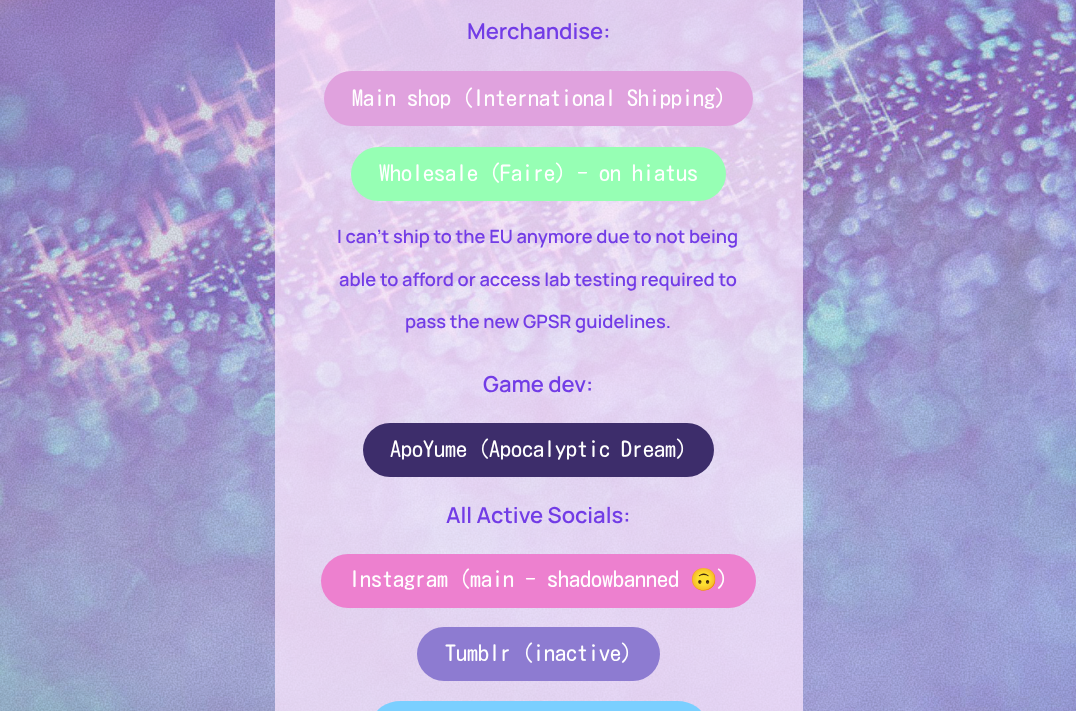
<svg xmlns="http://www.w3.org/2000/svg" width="1076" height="711">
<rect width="100%" height="100%" fill="#fff"/>
<image x="0" y="0" width="1076" height="711" href="media/1.png"/>
<text x="467" y="39" style="font-family:Manrope;font-size:22px;font-weight:200;fill:#723ce6">Merchandise:</text>
<rect x="324" y="71" width="429" height="55" rx="27.5" fill="#e0a2de"/>
<text x="352" y="106" style="font-family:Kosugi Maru;font-size:22px;fill:#fff">Main shop (International Shipping)</text>
<rect x="351" y="147" width="375" height="54" rx="27" fill="#96ffb4"/>
<text x="379" y="181" style="font-family:Kosugi Maru;font-size:22px;fill:#fff">Wholesale (Faire) - on hiatus</text>
<text x="337" y="243" style="font-family:Manrope;font-size:18.3px;font-weight:200;fill:#723ce6">I can't ship to the EU anymore due to not being</text>
<text x="339" y="286" style="font-family:Manrope;font-size:18.3px;font-weight:200;fill:#723ce6">able to afford or access lab testing required to</text>
<text x="405" y="328" style="font-family:Manrope;font-size:18.3px;font-weight:200;fill:#723ce6">pass the new GPSR guidelines.</text>
<text x="483" y="392" style="font-family:Manrope;font-size:22px;font-weight:200;fill:#723ce6">Game dev:</text>
<rect x="363" y="423" width="351" height="54" rx="27" fill="#3d2d6b"/>
<text x="390" y="457" style="font-family:Kosugi Maru;font-size:22px;fill:#fff">ApoYume (Apocalyptic Dream)</text>
<text x="446" y="523" style="font-family:Manrope;font-size:22px;font-weight:200;fill:#723ce6">All Active Socials:</text>
<rect x="321" y="554" width="435" height="54" rx="27" fill="#ed80cf"/>
<text x="349" y="587" style="font-family:Kosugi Maru;font-size:22px;fill:#fff">Instagram (main - shadowbanned</text>
<text x="690" y="587" style="font-family:Noto Color Emoji;font-size:22px;fill:#fff">🙃</text>
<text x="717" y="587" style="font-family:Kosugi Maru;font-size:22px;fill:#fff">)</text>
<rect x="417" y="627" width="243" height="54" rx="27" fill="#8d7bd1"/>
<text x="445" y="661" style="font-family:Kosugi Maru;font-size:22px;fill:#fff">Tumblr (inactive)</text>
<rect x="374" y="701" width="330" height="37" rx="27" fill="#7acfff"/>
</svg>
